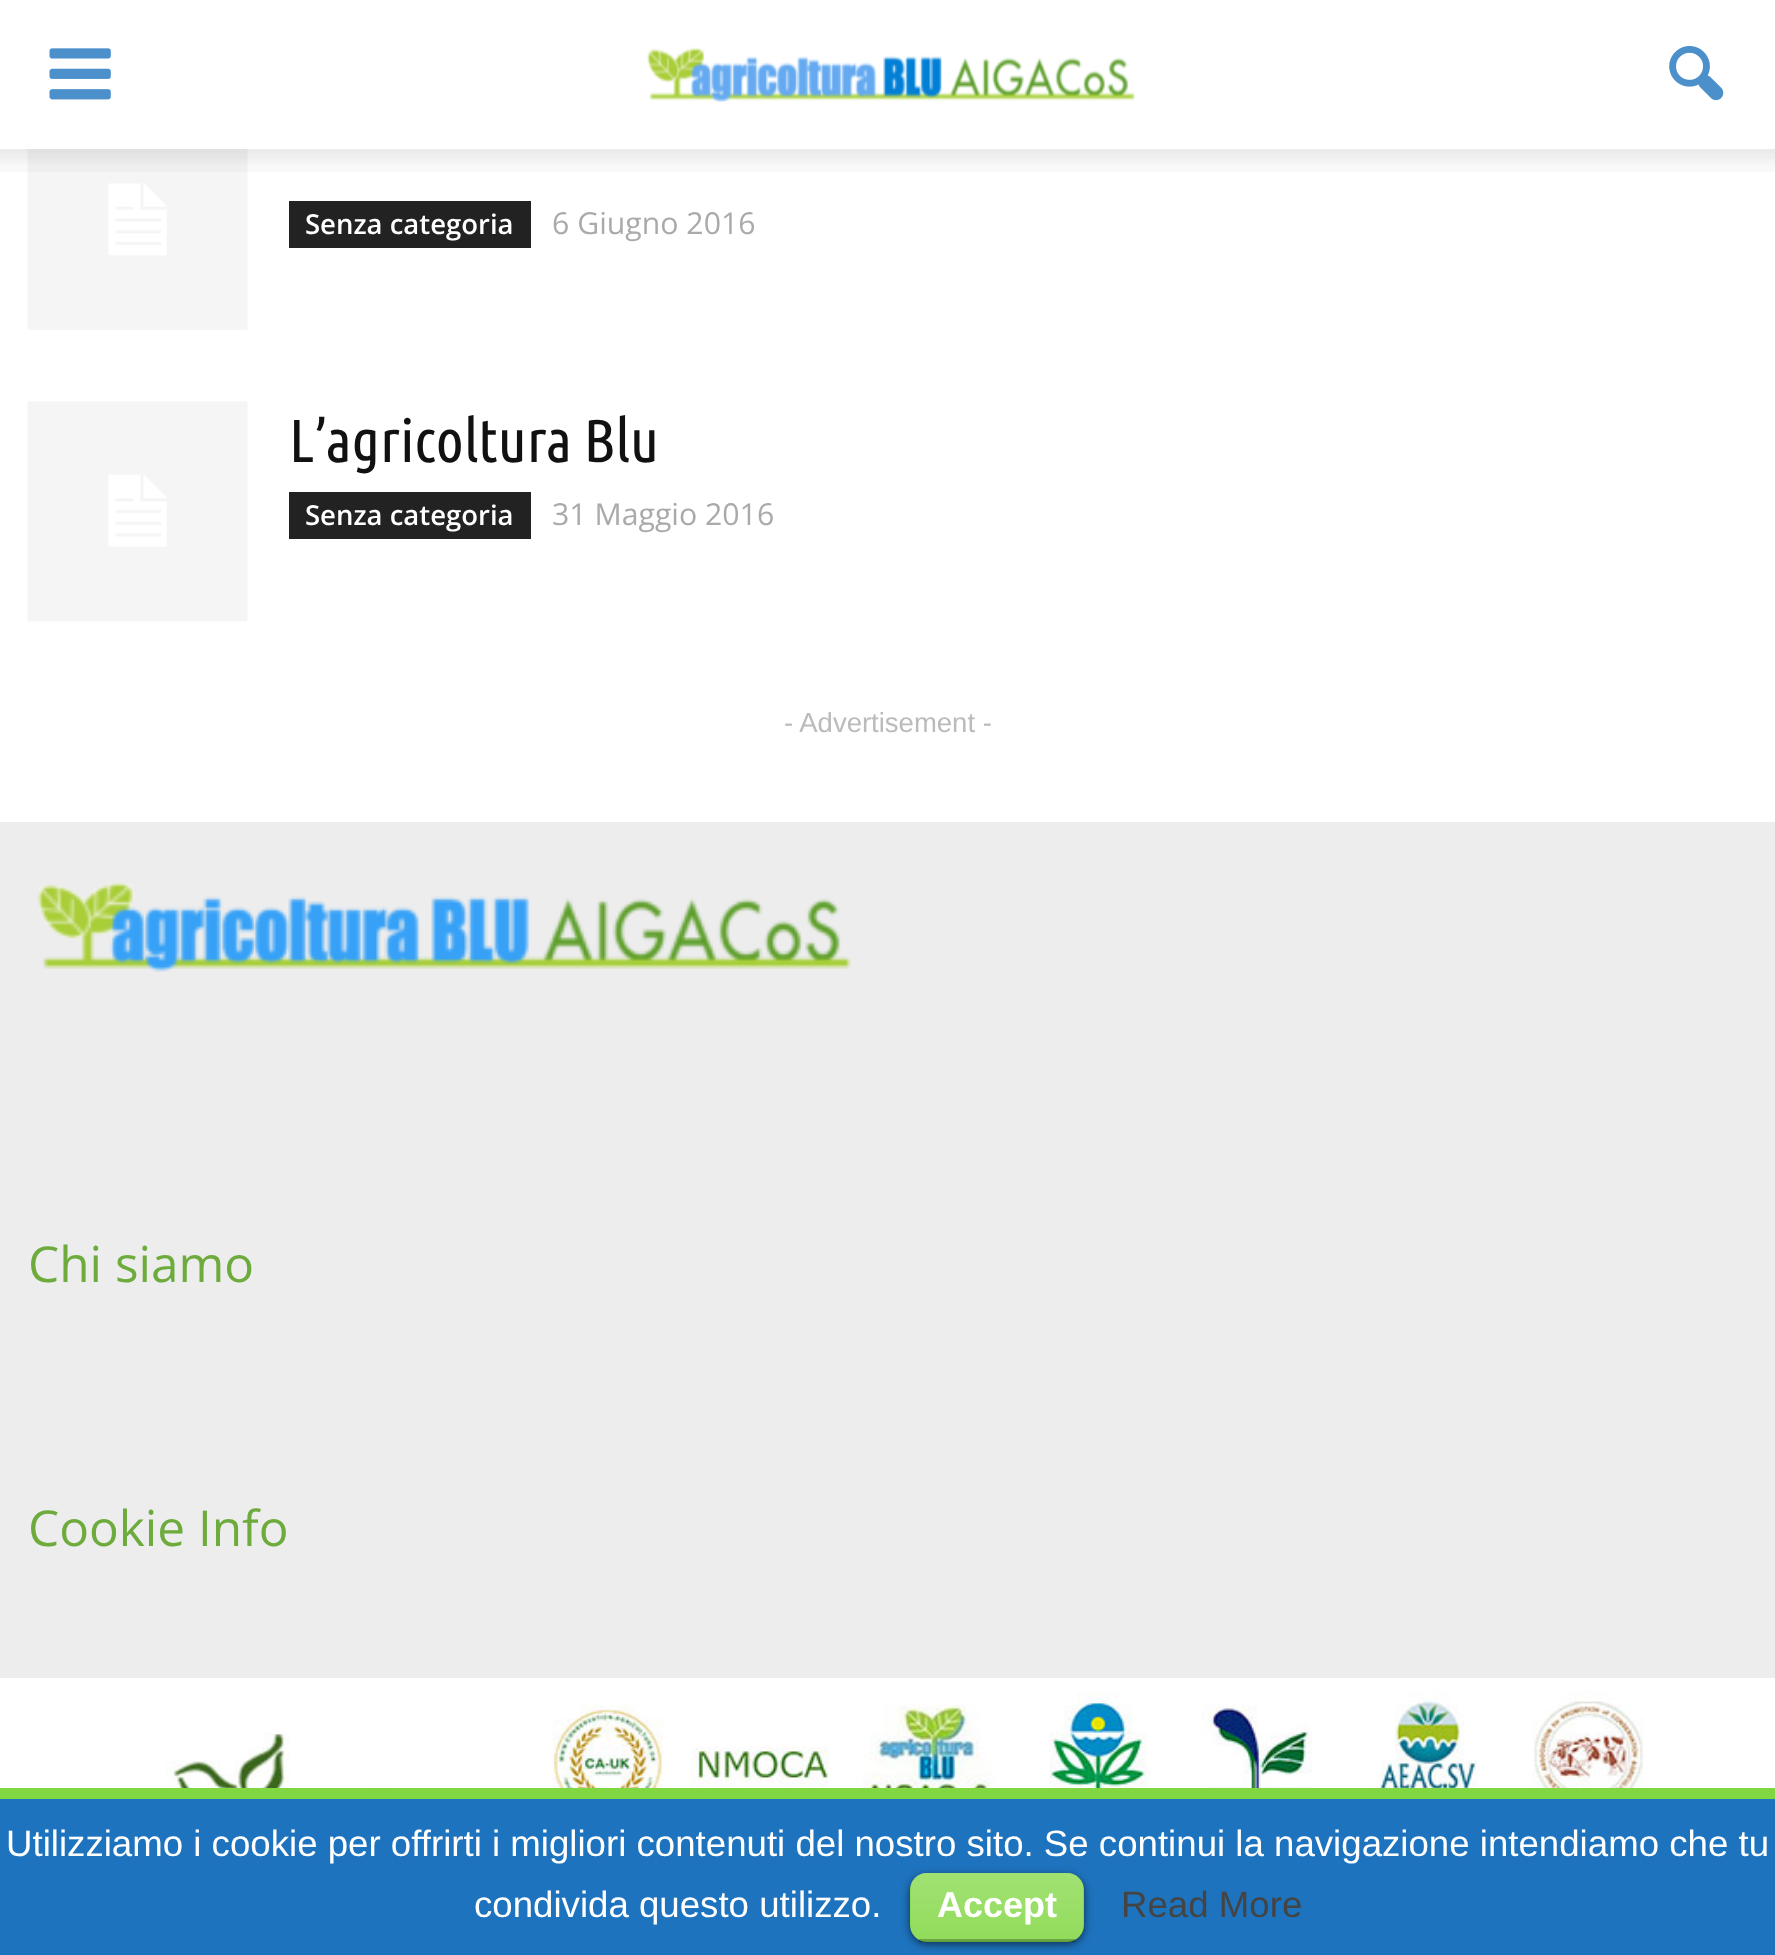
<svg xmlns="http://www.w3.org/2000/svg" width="1775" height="1955">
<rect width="100%" height="100%" fill="#fff"/>
<image x="49" y="48" width="62" height="52" href="media/1.png"/>
<image x="647" y="47" width="488" height="55" href="media/2.png"/>
<image x="1669" y="46" width="55" height="55" href="media/3.png"/>
<image x="27" y="149" width="221" height="181" href="media/5.png"/>
<image x="0" y="149" width="1775" height="23" href="media/4.png"/>
<rect x="289" y="201" width="242" height="47" fill="#222"/>
<text x="305" y="234" style="font-family:Open Sans;font-size:27.5px;font-weight:600;fill:#fff">Senza categoria</text>
<text x="552" y="234" style="font-family:Open Sans;font-size:30.25px;fill:#aaa">6 Giugno 2016</text>
<image x="27" y="401" width="221" height="221" href="media/6.png"/>
<text x="289" y="462" style="font-family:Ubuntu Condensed;font-size:60.5px;fill:#111">L’agricoltura Blu</text>
<rect x="289" y="492" width="242" height="47" fill="#222"/>
<text x="305" y="525" style="font-family:Open Sans;font-size:27.5px;font-weight:600;fill:#fff">Senza categoria</text>
<text x="552" y="525" style="font-family:Open Sans;font-size:30.25px;fill:#aaa">31 Maggio 2016</text>
<text x="784" y="732" style="font-family:Liberation Sans;font-size:27.5px;fill:#bbb">- Advertisement -</text>
<rect y="822" width="1775" height="856" fill="#ededed"/>
<image x="37" y="882" width="814" height="90" href="media/7.png"/>
<text x="28" y="1282" style="font-family:Open Sans;font-size:49.5px;fill:#6dab3c">Chi siamo</text>
<text x="28" y="1546" style="font-family:Open Sans;font-size:49.5px;fill:#6dab3c">Cookie Info</text>
<image x="69" y="1691" width="1575" height="97" href="media/8.png"/>
<rect y="1799" width="1775" height="156" fill="#1e73be"/>
<rect y="1788" width="1775" height="11" fill="#81d742"/>
<text x="6" y="1856" style="font-family:Liberation Sans;font-size:36.65px;fill:#fff">Utilizziamo i cookie per offrirti i migliori contenuti del nostro sito. Se continui la navigazione intendiamo che tu</text>
<text x="474" y="1917" style="font-family:Liberation Sans;font-size:36.65px;fill:#fff">condivida questo utilizzo.</text>
<rect x="910" y="1876" width="174" height="68" rx="17" fill="#00000099" filter="blur(4px)"/>
<rect x="910" y="1873" width="174" height="69" rx="17" fill="#81d742"/>
<image x="910" y="1873" width="174" height="69" href="media/9.png"/>
<rect x="919" y="1939" width="156" height="3" fill="#00000040"/>
<text x="937" y="1917" style="font-family:Liberation Sans;font-size:36px;font-weight:bold;fill:#fff">Accept</text>
<text x="1121" y="1917" style="font-family:Liberation Sans;font-size:36.65px;fill:#444">Read More</text>
</svg>
